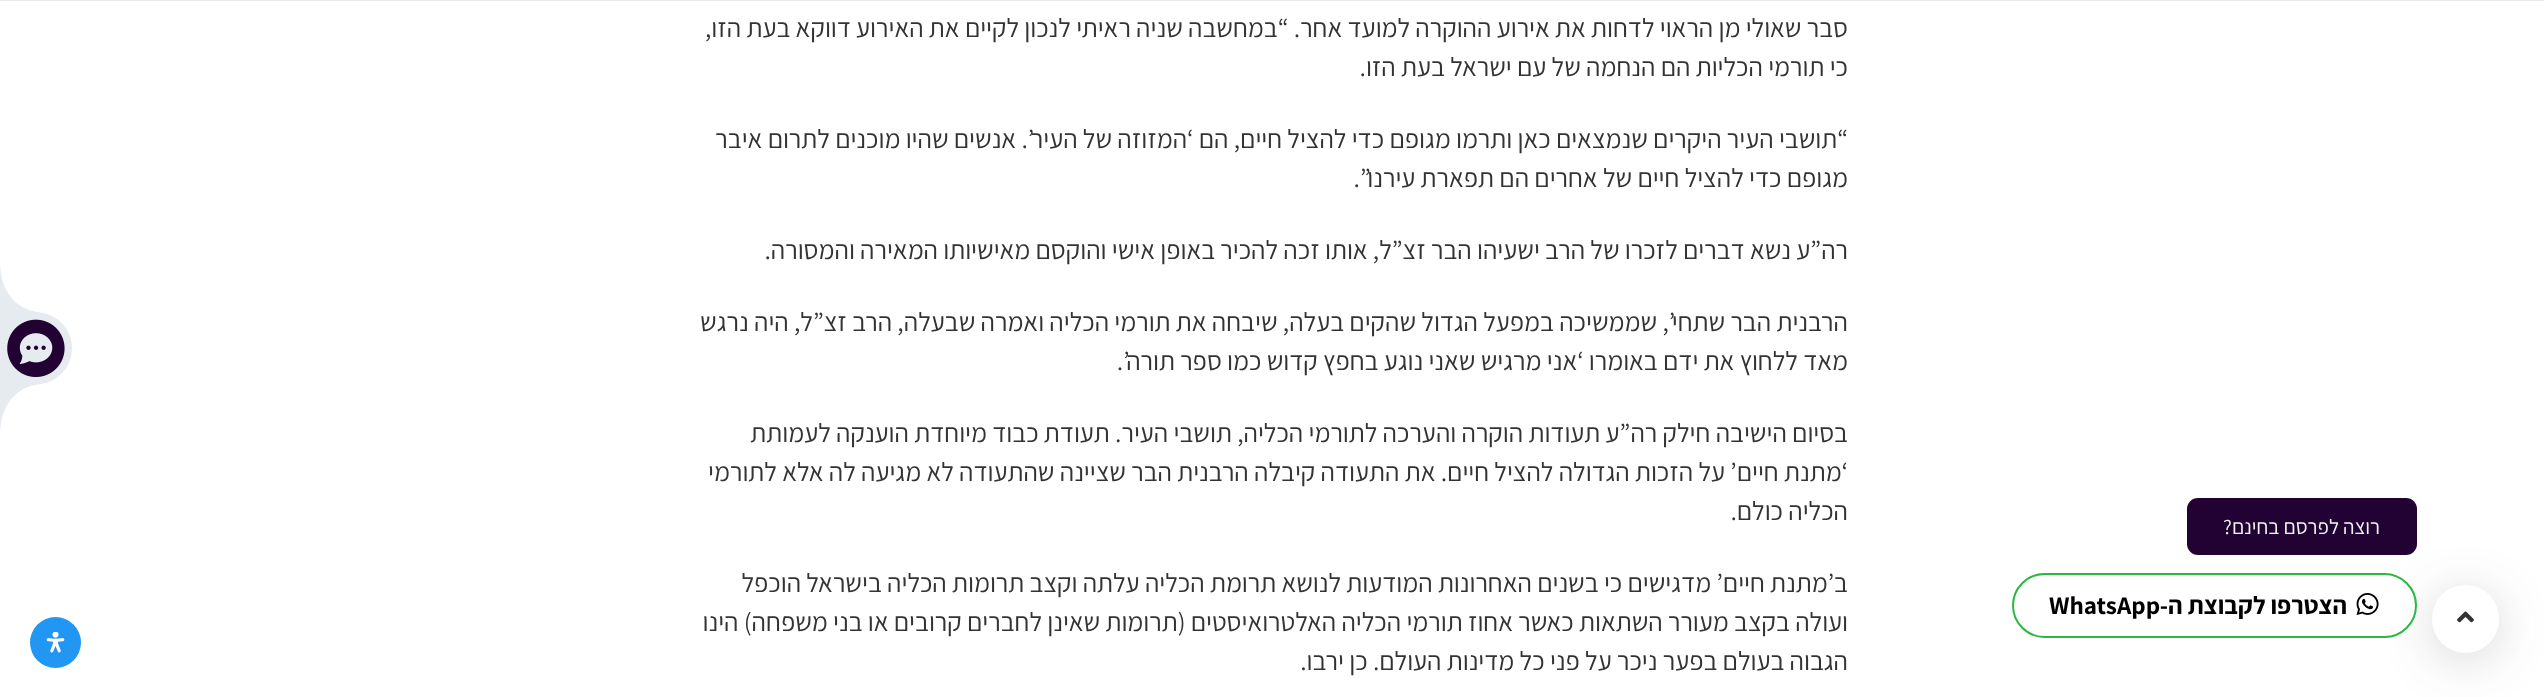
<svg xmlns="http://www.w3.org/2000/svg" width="2544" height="697">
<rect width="100%" height="100%" fill="#fff"/>
<rect width="2544" height="1" fill="#e8e8e8"/>
<rect x="2432" y="593" width="67" height="67" rx="33.5" fill="#33333333" filter="blur(25px)"/>
<rect x="2432" y="585" width="67" height="68" rx="33.5" fill="#fff"/>
<image x="2457" y="611" width="17" height="12" href="media/1.png"/>
<image x="0" y="266" width="72" height="165" href="media/2.png"/>
<rect x="2187" y="498" width="230" height="57" rx="11" fill="#220133"/>
<text x="2380" y="534" style="font-family:Assistant;font-size:21px;direction:rtl;fill:#f3f2f4">רוצה לפרסם בחינם?</text>
<rect x="2013" y="574" width="403" height="63" rx="31.5" fill="#fff" stroke="#2cb742" stroke-width="2"/>
<image x="2356" y="593" width="23" height="22" href="media/3.png"/>
<text x="2347" y="614" style="font-family:Assistant;font-size:25.25px;font-weight:bold;direction:rtl;fill:#000">הצטרפו לקבוצת ה-</text>
<text x="2049" y="614" style="font-family:Assistant;font-size:25.25px;font-weight:bold;fill:#000">WhatsApp</text>
<text x="1848" y="37" style="font-family:Assistant;font-size:26.4px;direction:rtl;fill:#333">סבר שאולי מן הראוי לדחות את אירוע ההוקרה למועד אחר. “במחשבה שניה ראיתי לנכון לקיים את האירוע דווקא בעת הזו,</text>
<text x="1848" y="76" style="font-family:Assistant;font-size:26.4px;direction:rtl;fill:#333">כי תורמי הכליות הם הנחמה של עם ישראל בעת הזו.</text>
<text x="1848" y="148" style="font-family:Assistant;font-size:26.4px;direction:rtl;fill:#333">“תושבי העיר היקרים שנמצאים כאן ותרמו מגופם כדי להציל חיים, הם ‘המזוזה של העיר’. אנשים שהיו מוכנים לתרום איבר</text>
<text x="1848" y="187" style="font-family:Assistant;font-size:26.4px;direction:rtl;fill:#333">מגופם כדי להציל חיים של אחרים הם תפארת עירנו”.</text>
<text x="1848" y="259" style="font-family:Assistant;font-size:26.4px;direction:rtl;fill:#333">רה”ע נשא דברים לזכרו של הרב ישעיהו הבר זצ”ל, אותו זכה להכיר באופן אישי והוקסם מאישיותו המאירה והמסורה.</text>
<text x="1848" y="331" style="font-family:Assistant;font-size:26.4px;direction:rtl;fill:#333">הרבנית הבר שתחי’, שממשיכה במפעל הגדול שהקים בעלה, שיבחה את תורמי הכליה ואמרה שבעלה, הרב זצ”ל, היה נרגש</text>
<text x="1848" y="370" style="font-family:Assistant;font-size:26.4px;direction:rtl;fill:#333">מאד ללחוץ את ידם באומרו ‘אני מרגיש שאני נוגע בחפץ קדוש כמו ספר תורה’.</text>
<text x="1848" y="442" style="font-family:Assistant;font-size:26.4px;direction:rtl;fill:#333">בסיום הישיבה חילק רה”ע תעודות הוקרה והערכה לתורמי הכליה, תושבי העיר. תעודת כבוד מיוחדת הוענקה לעמותת</text>
<text x="1848" y="481" style="font-family:Assistant;font-size:26.4px;direction:rtl;fill:#333">‘מתנת חיים’ על הזכות הגדולה להציל חיים. את התעודה קיבלה הרבנית הבר שציינה שהתעודה לא מגיעה לה אלא לתורמי</text>
<text x="1848" y="520" style="font-family:Assistant;font-size:26.4px;direction:rtl;fill:#333">הכליה כולם.</text>
<text x="1848" y="592" style="font-family:Assistant;font-size:26.4px;direction:rtl;fill:#333">ב’מתנת חיים’ מדגישים כי בשנים האחרונות המודעות לנושא תרומת הכליה עלתה וקצב תרומות הכליה בישראל הוכפל</text>
<text x="1848" y="631" style="font-family:Assistant;font-size:26.4px;direction:rtl;fill:#333">ועולה בקצב מעורר השתאות כאשר אחוז תורמי הכליה האלטרואיסטים (תרומות שאינן לחברים קרובים או בני משפחה) הינו</text>
<text x="1848" y="670" style="font-family:Assistant;font-size:26.4px;direction:rtl;fill:#333">הגבוה בעולם בפער ניכר על פני כל מדינות העולם. כן ירבו.</text>
<circle cx="55.5" cy="642.5" r="25.5" fill="#2196f3"/>
<image x="46" y="632" width="19" height="21" href="media/4.png"/>
</svg>
